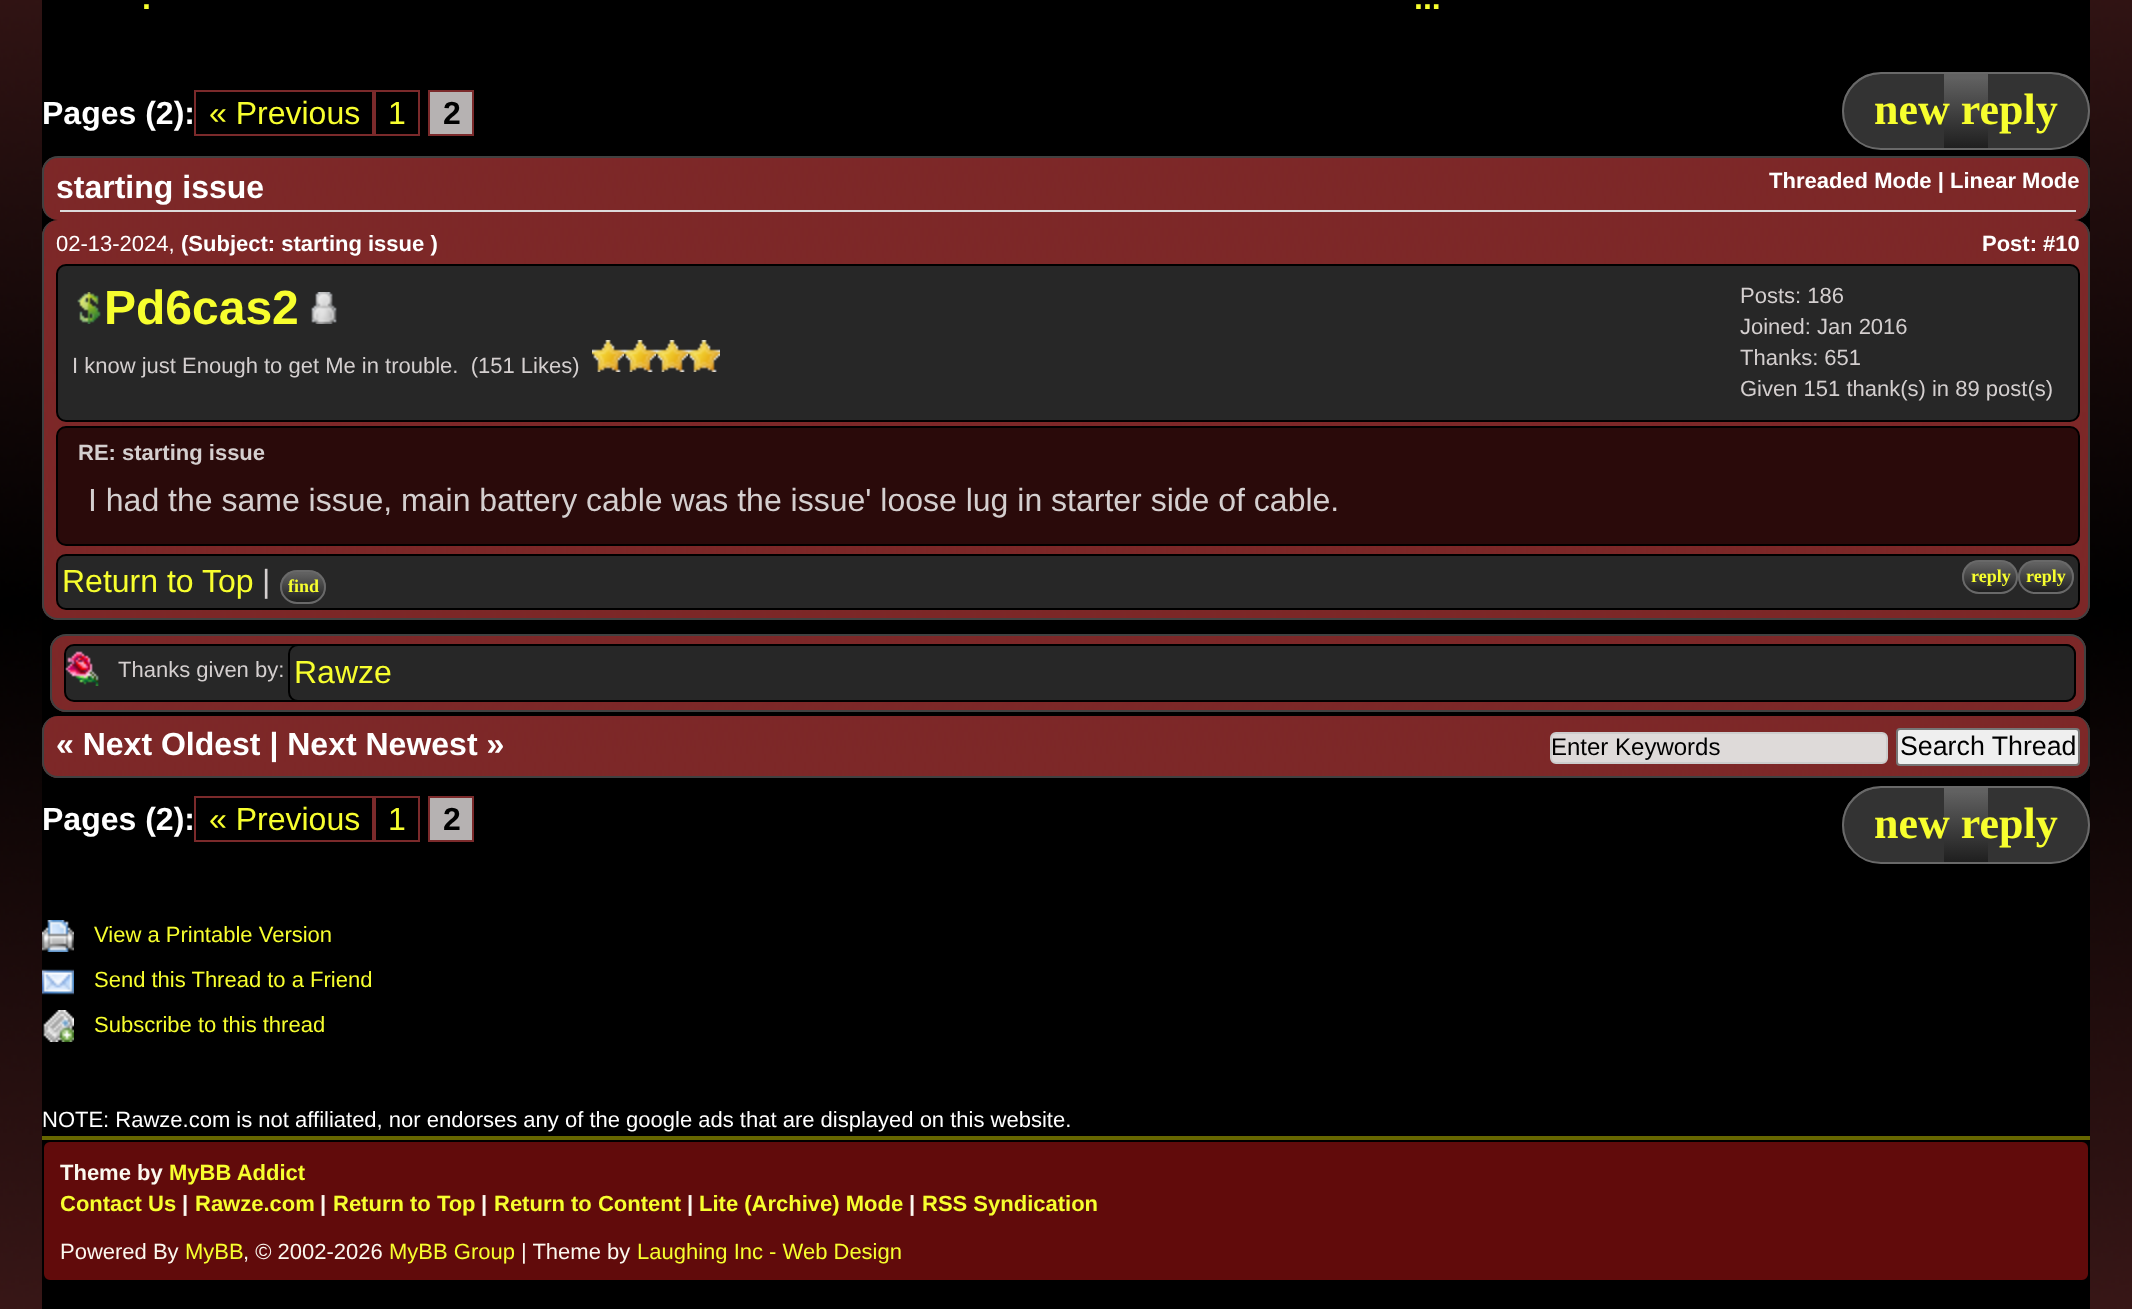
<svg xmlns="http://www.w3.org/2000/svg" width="2132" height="1309">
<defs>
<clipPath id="clip1"><rect x="1842" y="72" width="248" height="78" rx="39"/></clipPath>
<linearGradient id="g1" gradientUnits="userSpaceOnUse" x1="1844" y1="74" x2="1844" y2="148"><stop offset="0.05" stop-color="#616161"/><stop offset="1" stop-color="#1f1f1f"/></linearGradient>
<clipPath id="clip2"><rect x="280" y="570" width="46" height="34" rx="17"/></clipPath>
<linearGradient id="g2" gradientUnits="userSpaceOnUse" x1="282" y1="572" x2="282" y2="602"><stop offset="0.05" stop-color="#616161"/><stop offset="1" stop-color="#1f1f1f"/></linearGradient>
<clipPath id="clip3"><rect x="1962" y="560" width="56" height="34" rx="17"/></clipPath>
<linearGradient id="g3" gradientUnits="userSpaceOnUse" x1="1964" y1="562" x2="1964" y2="592"><stop offset="0.05" stop-color="#616161"/><stop offset="1" stop-color="#1f1f1f"/></linearGradient>
<clipPath id="clip4"><rect x="2018" y="560" width="56" height="34" rx="17"/></clipPath>
<linearGradient id="g4" gradientUnits="userSpaceOnUse" x1="2020" y1="562" x2="2020" y2="592"><stop offset="0.05" stop-color="#616161"/><stop offset="1" stop-color="#1f1f1f"/></linearGradient>
<clipPath id="clip5"><rect x="1842" y="786" width="248" height="78" rx="39"/></clipPath>
<linearGradient id="g5" gradientUnits="userSpaceOnUse" x1="1844" y1="788" x2="1844" y2="862"><stop offset="0.05" stop-color="#616161"/><stop offset="1" stop-color="#1f1f1f"/></linearGradient>
</defs>
<rect width="100%" height="100%" fill="#fff"/>
<image x="0" y="0" width="2132" height="1309" href="media/1.png"/>
<rect x="42" width="2048" height="1309" fill="#000"/>
<text x="142" y="9" style="font-family:Liberation Sans;font-size:32px;font-weight:bold;fill:#f7fe2e">.</text>
<text x="1414" y="9" style="font-family:Liberation Sans;font-size:32px;font-weight:bold;fill:#f7fe2e">...</text>
<text x="42" y="124" style="font-family:Liberation Sans;font-size:32px;font-weight:bold;fill:#fff">Pages (2):</text>
<rect x="195" y="91" width="178" height="44" fill="none" stroke="#7b2a2b" stroke-width="2"/>
<text x="209" y="124" style="font-family:Liberation Sans;font-size:32px;fill:#f7fe2e">« Previous</text>
<rect x="375" y="91" width="44" height="44" fill="none" stroke="#7b2a2b" stroke-width="2"/>
<text x="388" y="124" style="font-family:Liberation Sans;font-size:32px;fill:#f7fe2e">1</text>
<rect x="429" y="91" width="44" height="44" fill="#b6b2b2" stroke="#7b2a2b" stroke-width="2"/>
<text x="443" y="124" style="font-family:Liberation Sans;font-size:32px;font-weight:bold;fill:#000">2</text>
<g clip-path="url(#clip1)">
<rect x="1842" y="74" width="248" height="74" fill="url(#g1)"/>
</g>
<path d="M1988 148h63c20 0 37-17 37-37c0-20-17-37-37-37h-63zm-107-74c-20 0-37 17-37 37c0 20 17 37 37 37h63v-74z" fill="#333" fill-rule="evenodd"/>
<rect x="1843" y="73" width="246" height="76" rx="38" fill="none" stroke="#696969" stroke-width="2"/>
<text x="1874" y="124" style="font-family:Liberation Serif;font-size:44px;font-weight:bold;fill:#f7fe2e">new reply</text>
<image x="42" y="158" width="2048" height="62" href="media/2.png"/>
<path d="M58 156h2016c9 0 16 7 16 16v32c0 9-7 16-16 16h-2016c-9 0-16-7-16-16v-32c0-9 7-16 16-16zm0 2h2016c8 0 14 6 14 14v32c0 9-6 16-14 16h-2016c-8 0-14-7-14-16v-32c0-8 6-14 14-14z" fill="#414141" fill-rule="evenodd"/>
<rect x="60" y="210" width="2016" height="2" fill="#dddada"/>
<text x="56" y="198" style="font-family:Liberation Sans;font-size:32px;font-weight:bold;fill:#fff">starting issue</text>
<text x="1769" y="188" style="font-family:Liberation Sans;font-size:22px;font-weight:bold;fill:#fff">Threaded Mode | Linear Mode</text>
<image x="42" y="220" width="2048" height="400" href="media/3.png"/>
<path d="M58 220h2016c9 0 16 7 16 16v368c0 9-7 16-16 16h-2016c-9 0-16-7-16-16v-368c0-9 7-16 16-16zm0 0h2016c8 0 14 7 14 16v368c0 8-6 14-14 14h-2016c-8 0-14-6-14-14v-368c0-9 6-16 14-16z" fill="#414141" fill-rule="evenodd"/>
<text x="56" y="251" style="font-family:Liberation Sans;font-size:22px;fill:#fff">02-13-2024,</text>
<text x="181" y="251" style="font-family:Liberation Sans;font-size:22px;font-weight:bold;fill:#fff">(Subject: starting issue )</text>
<text x="1982" y="251" style="font-family:Liberation Sans;font-size:22px;font-weight:bold;fill:#fff">Post: #10</text>
<rect x="57" y="265" width="2022" height="156" rx="9" fill="#272727" stroke="#000" stroke-width="2"/>
<image x="77" y="292" width="24" height="32" href="media/4.png"/>
<text x="104" y="324" style="font-family:Liberation Sans;font-size:48px;font-weight:bold;fill:#f7fe2e">Pd6cas2</text>
<image x="311" y="292" width="26" height="32" href="media/5.png"/>
<text x="72" y="373" style="font-family:Liberation Sans;font-size:22px;fill:#d4cfcf" xml:space="preserve">I know just Enough to get Me in trouble.  (151 Likes)</text>
<image x="592" y="340" width="32" height="32" href="media/6.png"/>
<image x="624" y="340" width="32" height="32" href="media/6.png"/>
<image x="656" y="340" width="32" height="32" href="media/6.png"/>
<image x="688" y="340" width="32" height="32" href="media/6.png"/>
<text x="1740" y="303" style="font-family:Liberation Sans;font-size:22px;fill:#d4cfcf">Posts: 186</text>
<text x="1740" y="334" style="font-family:Liberation Sans;font-size:22px;fill:#d4cfcf">Joined: Jan 2016</text>
<text x="1740" y="365" style="font-family:Liberation Sans;font-size:22px;fill:#d4cfcf">Thanks: 651</text>
<text x="1740" y="396" style="font-family:Liberation Sans;font-size:22px;fill:#d4cfcf">Given 151 thank(s) in 89 post(s)</text>
<rect x="57" y="427" width="2022" height="118" rx="9" fill="#2a0a0a" stroke="#000" stroke-width="2"/>
<text x="78" y="460" style="font-family:Liberation Sans;font-size:22px;font-weight:bold;fill:#d4cfcf">RE: starting issue</text>
<text x="88" y="511" style="font-family:Liberation Sans;font-size:32px;fill:#d4cfcf">I had the same issue, main battery cable was the issue' loose lug in starter side of cable.</text>
<rect x="57" y="555" width="2022" height="54" rx="9" fill="#272727" stroke="#000" stroke-width="2"/>
<text x="62" y="592" style="font-family:Liberation Sans;font-size:32px;fill:#f7fe2e">Return to Top</text>
<text x="262" y="592" style="font-family:Liberation Sans;font-size:32px;fill:#d4cfcf">|</text>
<g clip-path="url(#clip2)">
<rect x="280" y="572" width="46" height="30" fill="url(#g2)"/>
</g>
<rect x="281" y="571" width="44" height="32" rx="16" fill="none" stroke="#696969" stroke-width="2"/>
<text x="288" y="592" style="font-family:Liberation Serif;font-size:18px;font-weight:bold;fill:#f7fe2e">find</text>
<g clip-path="url(#clip3)">
<rect x="1962" y="562" width="56" height="30" fill="url(#g3)"/>
</g>
<rect x="1963" y="561" width="54" height="32" rx="16" fill="none" stroke="#696969" stroke-width="2"/>
<text x="1971" y="582" style="font-family:Liberation Serif;font-size:18px;font-weight:bold;fill:#f7fe2e">reply</text>
<g clip-path="url(#clip4)">
<rect x="2018" y="562" width="56" height="30" fill="url(#g4)"/>
</g>
<rect x="2019" y="561" width="54" height="32" rx="16" fill="none" stroke="#696969" stroke-width="2"/>
<text x="2026" y="582" style="font-family:Liberation Serif;font-size:18px;font-weight:bold;fill:#f7fe2e">reply</text>
<image x="50" y="636" width="2036" height="76" href="media/7.png"/>
<rect x="51" y="635" width="2034" height="76" rx="15" fill="none" stroke="#414141" stroke-width="2"/>
<rect x="65" y="645" width="2010" height="56" rx="9" fill="#272727" stroke="#000" stroke-width="2"/>
<image x="65" y="651" width="34" height="35" href="media/8.png"/>
<text x="118" y="677" style="font-family:Liberation Sans;font-size:22px;fill:#d4cfcf">Thanks given by:</text>
<rect x="289" y="645" width="1786" height="56" rx="9" fill="#272727" stroke="#000" stroke-width="2"/>
<text x="294" y="683" style="font-family:Liberation Sans;font-size:32px;fill:#f7fe2e">Rawze</text>
<image x="42" y="716" width="2048" height="62" href="media/9.png"/>
<path d="M58 716h2016c9 0 16 7 16 16v30c0 9-7 16-16 16h-2016c-9 0-16-7-16-16v-30c0-9 7-16 16-16zm0 0h2016c8 0 14 7 14 16v30c0 8-6 14-14 14h-2016c-8 0-14-6-14-14v-30c0-9 6-16 14-16z" fill="#414141" fill-rule="evenodd"/>
<text x="56" y="755" style="font-family:Liberation Sans;font-size:32px;font-weight:bold;fill:#fff">« Next Oldest | Next Newest »</text>
<rect x="1551" y="733" width="336" height="30" rx="5" fill="#dedad9" stroke="#ccc" stroke-width="2"/>
<text x="1551" y="755" style="font-family:Liberation Sans;font-size:24px;fill:#000">Enter Keywords</text>
<rect x="1897" y="729" width="182" height="36" rx="3" fill="#efefef" stroke="#767676" stroke-width="2"/>
<text x="1900" y="755" style="font-family:Liberation Sans;font-size:26.75px;fill:#000">Search Thread</text>
<text x="42" y="830" style="font-family:Liberation Sans;font-size:32px;font-weight:bold;fill:#fff">Pages (2):</text>
<rect x="195" y="797" width="178" height="44" fill="none" stroke="#7b2a2b" stroke-width="2"/>
<text x="209" y="830" style="font-family:Liberation Sans;font-size:32px;fill:#f7fe2e">« Previous</text>
<rect x="375" y="797" width="44" height="44" fill="none" stroke="#7b2a2b" stroke-width="2"/>
<text x="388" y="830" style="font-family:Liberation Sans;font-size:32px;fill:#f7fe2e">1</text>
<rect x="429" y="797" width="44" height="44" fill="#b6b2b2" stroke="#7b2a2b" stroke-width="2"/>
<text x="443" y="830" style="font-family:Liberation Sans;font-size:32px;font-weight:bold;fill:#000">2</text>
<g clip-path="url(#clip5)">
<rect x="1842" y="788" width="248" height="74" fill="url(#g5)"/>
</g>
<path d="M1988 862h63c20 0 37-17 37-37c0-20-17-37-37-37h-63zm-107-74c-20 0-37 17-37 37c0 20 17 37 37 37h63v-74z" fill="#333" fill-rule="evenodd"/>
<rect x="1843" y="787" width="246" height="76" rx="38" fill="none" stroke="#696969" stroke-width="2"/>
<text x="1874" y="838" style="font-family:Liberation Serif;font-size:44px;font-weight:bold;fill:#f7fe2e">new reply</text>
<image x="42" y="920" width="32" height="32" href="media/10.png"/>
<text x="94" y="942" style="font-family:Liberation Sans;font-size:22px;fill:#f7fe2e">View a Printable Version</text>
<image x="42" y="969" width="32" height="26" href="media/11.png"/>
<text x="94" y="987" style="font-family:Liberation Sans;font-size:22px;fill:#f7fe2e">Send this Thread to a Friend</text>
<image x="43" y="1010" width="31" height="32" href="media/12.png"/>
<text x="94" y="1032" style="font-family:Liberation Sans;font-size:22px;fill:#f7fe2e">Subscribe to this thread</text>
<text x="42" y="1127" style="font-family:Liberation Sans;font-size:22px;fill:#fff">NOTE: Rawze.com is not affiliated, nor endorses any of the google ads that are displayed on this website.</text>
<rect x="42" y="1136" width="2048" height="4" fill="#660"/>
<rect x="43" y="1141" width="2046" height="140" rx="7" fill="#610b0b" stroke="#000" stroke-width="2"/>
<text x="60" y="1180" style="font-family:Liberation Sans;font-size:22px;font-weight:bold;fill:#fbf8ef">Theme by</text>
<text x="169" y="1180" style="font-family:Liberation Sans;font-size:22px;font-weight:bold;fill:#f7fe2e">MyBB Addict</text>
<text x="60" y="1211" style="font-family:Liberation Sans;font-size:22px;font-weight:bold;fill:#f7fe2e">Contact Us</text>
<text x="182" y="1211" style="font-family:Liberation Sans;font-size:22px;font-weight:bold;fill:#fbf8ef">|</text>
<text x="195" y="1211" style="font-family:Liberation Sans;font-size:22px;font-weight:bold;fill:#f7fe2e">Rawze.com</text>
<text x="320" y="1211" style="font-family:Liberation Sans;font-size:22px;font-weight:bold;fill:#fbf8ef">|</text>
<text x="333" y="1211" style="font-family:Liberation Sans;font-size:22px;font-weight:bold;fill:#f7fe2e">Return to Top</text>
<text x="481" y="1211" style="font-family:Liberation Sans;font-size:22px;font-weight:bold;fill:#fbf8ef">|</text>
<text x="494" y="1211" style="font-family:Liberation Sans;font-size:22px;font-weight:bold;fill:#f7fe2e">Return to Content</text>
<text x="687" y="1211" style="font-family:Liberation Sans;font-size:22px;font-weight:bold;fill:#fbf8ef">|</text>
<text x="699" y="1211" style="font-family:Liberation Sans;font-size:22px;font-weight:bold;fill:#f7fe2e">Lite (Archive) Mode</text>
<text x="909" y="1211" style="font-family:Liberation Sans;font-size:22px;font-weight:bold;fill:#fbf8ef">|</text>
<text x="922" y="1211" style="font-family:Liberation Sans;font-size:22px;font-weight:bold;fill:#f7fe2e">RSS Syndication</text>
<text x="60" y="1259" style="font-family:Liberation Sans;font-size:22px;fill:#fbf8ef">Powered By</text>
<text x="185" y="1259" style="font-family:Liberation Sans;font-size:22px;fill:#f7fe2e">MyBB</text>
<text x="243" y="1259" style="font-family:Liberation Sans;font-size:22px;fill:#fbf8ef">, © 2002-2026</text>
<text x="389" y="1259" style="font-family:Liberation Sans;font-size:22px;fill:#f7fe2e">MyBB Group</text>
<text x="521" y="1259" style="font-family:Liberation Sans;font-size:22px;fill:#fbf8ef">| Theme by</text>
<text x="637" y="1259" style="font-family:Liberation Sans;font-size:22px;fill:#f7fe2e">Laughing Inc - Web Design</text>
</svg>
